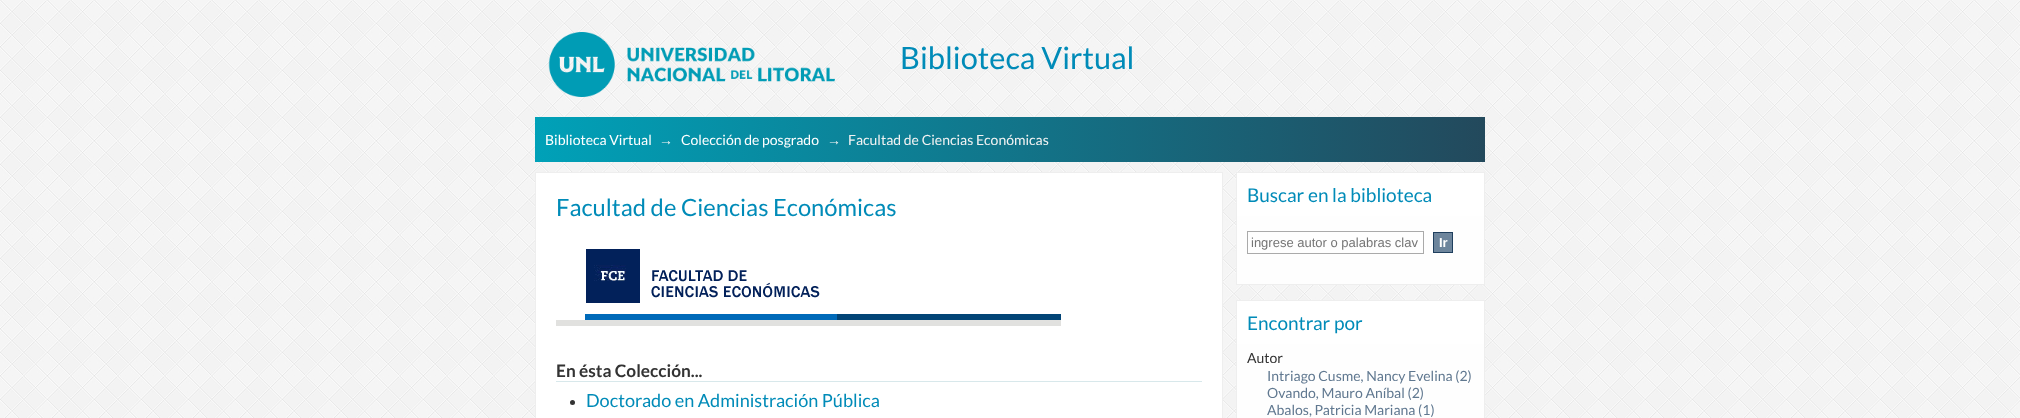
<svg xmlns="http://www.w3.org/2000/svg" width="2020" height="418">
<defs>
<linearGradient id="g1" gradientUnits="userSpaceOnUse" x1="535" y1="140" x2="1485" y2="139"><stop offset="0" stop-color="#00a1b8"/><stop offset="1" stop-color="#23495c"/></linearGradient>
</defs>
<rect width="100%" height="100%" fill="#fff"/>
<image x="0" y="0" width="2020" height="418" href="media/1.png"/>
<image x="548" y="32" width="287" height="65" href="media/2.png"/>
<text x="900" y="69" style="font-family:Lato;font-size:30.75px;fill:#008bb8">Biblioteca Virtual</text>
<rect x="535" y="117" width="950" height="45" fill="url(#g1)"/>
<text x="545" y="145" style="font-family:Lato;font-size:14px;fill:#fff">Biblioteca Virtual</text>
<text x="659" y="145" style="font-family:Liberation Sans;font-size:14px;fill:#f3f3f3">→</text>
<text x="681" y="145" style="font-family:Lato;font-size:14px;fill:#fff">Colección de posgrado</text>
<text x="827" y="145" style="font-family:Liberation Sans;font-size:14px;fill:#f3f3f3">→</text>
<text x="848" y="145" style="font-family:Lato;font-size:14px;fill:#f3f3f3">Facultad de Ciencias Económicas</text>
<rect x="535.5" y="172.5" width="687" height="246" fill="#fff" stroke="#eee"/>
<text x="556" y="216" style="font-family:Lato;font-size:23.75px;fill:#008bb8">Facultad de Ciencias Económicas</text>
<image x="556" y="249" width="505" height="77" href="media/3.png"/>
<rect x="556" y="381" width="646" height="1" fill="#d8e8eb"/>
<text x="556" y="377" style="font-family:Lato;font-size:17.25px;font-weight:bold;fill:#333">En ésta Colección...</text>
<circle cx="572.5" cy="402.5" r="2.5" fill="#333"/>
<text x="586" y="407" style="font-family:Lato;font-size:18.1px;fill:#008bb8">Doctorado en Administración Pública</text>
<rect x="1237" y="173" width="247" height="43" fill="#fff"/>
<rect x="1236" y="172" width="249" height="1" fill="#eee"/>
<rect x="1484" y="172" width="1" height="113" fill="#eee"/>
<rect x="1236" y="172" width="1" height="44" fill="#eee"/>
<text x="1247" y="202" style="font-family:Lato;font-size:19px;fill:#008bb8">Buscar en la biblioteca</text>
<rect x="1237" y="216" width="247" height="68" fill="#fefefe"/>
<rect x="1236" y="284" width="249" height="1" fill="#eee"/>
<rect x="1236" y="216" width="1" height="69" fill="#eee"/>
<rect x="1247.5" y="231.5" width="176" height="22" fill="none" stroke="#aaa"/>
<text x="1251" y="247" style="font-family:Liberation Sans;font-size:13px;fill:#757575">ingrese autor o palabras clav</text>
<rect x="1433.5" y="232.5" width="19" height="20" fill="#6d859c" stroke="#1f3f5e"/>
<text x="1439" y="247" style="font-family:Liberation Sans;font-size:13px;font-weight:bold;fill:#fff">Ir</text>
<rect x="1237" y="301" width="247" height="43" fill="#fff"/>
<rect x="1236" y="300" width="249" height="1" fill="#eee"/>
<rect x="1484" y="300" width="1" height="118" fill="#eee"/>
<rect x="1236" y="300" width="1" height="118" fill="#eee"/>
<text x="1247" y="330" style="font-family:Lato;font-size:19px;fill:#008bb8">Encontrar por</text>
<rect x="1237" y="344" width="247" height="74" fill="#fefefe"/>
<text x="1247" y="363" style="font-family:Lato;font-size:14px;fill:#333">Autor</text>
<text x="1267" y="381" style="font-family:Lato;font-size:14px;fill:#607890">Intriago Cusme, Nancy Evelina (2)</text>
<text x="1267" y="398" style="font-family:Lato;font-size:14px;fill:#607890">Ovando, Mauro Aníbal (2)</text>
<text x="1267" y="415" style="font-family:Lato;font-size:14px;fill:#607890">Abalos, Patricia Mariana (1)</text>
</svg>
